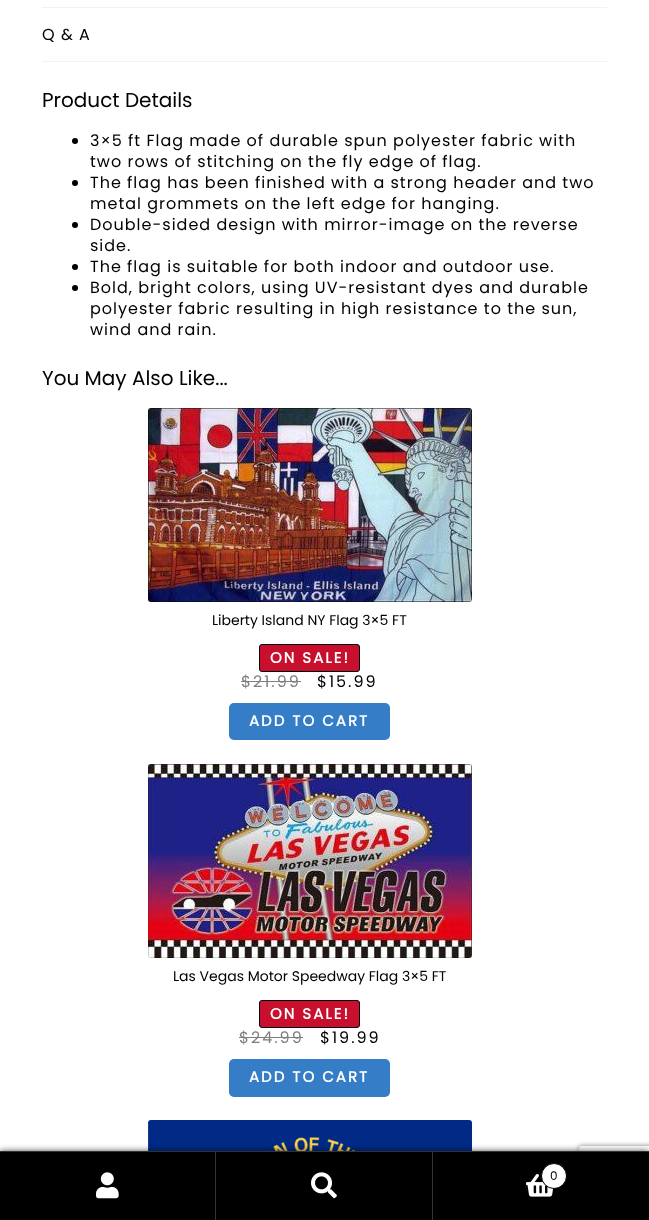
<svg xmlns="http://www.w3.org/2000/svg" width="649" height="1220">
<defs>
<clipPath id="clip1"><path d="M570 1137h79v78h-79zm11 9h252c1 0 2 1 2 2v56c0 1-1 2-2 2h-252c-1 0-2-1-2-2v-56c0-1 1-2 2-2z" clip-rule="evenodd"/></clipPath>
</defs>
<rect width="100%" height="100%" fill="#fff"/>
<rect x="42" y="7" width="565" height="1" fill="#f2f2f2"/>
<rect x="42" y="61" width="565" height="1" fill="#f2f2f2"/>
<text x="42" y="40" style="font-family:Poppins;font-size:16px;letter-spacing:1px;fill:#000">Q &amp; A</text>
<text x="42" y="107" style="font-family:Poppins;font-size:20px;fill:#000">Product Details</text>
<circle cx="75" cy="141" r="3" fill="#000"/>
<text x="90" y="146" style="font-family:Poppins;font-size:16px;letter-spacing:1px;fill:#000">3×5 ft Flag made of durable spun polyester fabric with</text>
<text x="90" y="167" style="font-family:Poppins;font-size:16px;letter-spacing:1px;fill:#000">two rows of stitching on the fly edge of flag.</text>
<circle cx="75" cy="183" r="3" fill="#000"/>
<text x="90" y="188" style="font-family:Poppins;font-size:16px;letter-spacing:1px;fill:#000">The flag has been finished with a strong header and two</text>
<text x="90" y="209" style="font-family:Poppins;font-size:16px;letter-spacing:1px;fill:#000">metal grommets on the left edge for hanging.</text>
<circle cx="75" cy="225" r="3" fill="#000"/>
<text x="90" y="230" style="font-family:Poppins;font-size:16px;letter-spacing:1px;fill:#000">Double-sided design with mirror-image on the reverse</text>
<text x="90" y="251" style="font-family:Poppins;font-size:16px;letter-spacing:1px;fill:#000">side.</text>
<circle cx="75" cy="267" r="3" fill="#000"/>
<text x="90" y="272" style="font-family:Poppins;font-size:16px;letter-spacing:1px;fill:#000">The flag is suitable for both indoor and outdoor use.</text>
<circle cx="75" cy="288" r="3" fill="#000"/>
<text x="90" y="293" style="font-family:Poppins;font-size:16px;letter-spacing:1px;fill:#000">Bold, bright colors, using UV-resistant dyes and durable</text>
<text x="90" y="314" style="font-family:Poppins;font-size:16px;letter-spacing:1px;fill:#000">polyester fabric resulting in high resistance to the sun,</text>
<text x="90" y="335" style="font-family:Poppins;font-size:16px;letter-spacing:1px;fill:#000">wind and rain.</text>
<text x="42" y="385" style="font-family:Poppins;font-size:20px;fill:#000">You May Also Like...</text>
<image x="148" y="408" width="324" height="194" href="media/1.png"/>
<text x="212" y="625" style="font-family:Poppins;font-size:14px;fill:#000">Liberty Island NY Flag 3×5 FT</text>
<rect x="259.5" y="644.5" width="100" height="27" rx="2.5" fill="#c8102e" stroke="#000"/>
<text x="270" y="663" style="font-family:Poppins;font-size:15px;font-weight:bold;letter-spacing:2px;fill:#fff">ON SALE!</text>
<text x="241" y="687" style="font-family:Poppins;font-size:16px;letter-spacing:2px;fill:#808080">$21.99</text>
<rect x="241" y="681" width="60" height="1" fill="#808080"/>
<text x="317" y="687" style="font-family:Poppins;font-size:16px;letter-spacing:2px;fill:#000">$15.99</text>
<rect x="229" y="703" width="161" height="37" rx="5" fill="#357ec7"/>
<text x="249" y="726" style="font-family:Poppins;font-size:15px;font-weight:bold;letter-spacing:2px;fill:#fff">ADD TO CART</text>
<image x="148" y="764" width="324" height="194" href="media/2.png"/>
<text x="173" y="981" style="font-family:Poppins;font-size:14px;fill:#000">Las Vegas Motor Speedway Flag 3×5 FT</text>
<rect x="259.5" y="1000.5" width="100" height="27" rx="2.5" fill="#c8102e" stroke="#000"/>
<text x="270" y="1019" style="font-family:Poppins;font-size:15px;font-weight:bold;letter-spacing:2px;fill:#fff">ON SALE!</text>
<text x="239" y="1043" style="font-family:Poppins;font-size:16px;letter-spacing:2px;fill:#808080">$24.99</text>
<rect x="239" y="1037" width="64" height="1" fill="#808080"/>
<text x="320" y="1043" style="font-family:Poppins;font-size:16px;letter-spacing:2px;fill:#000">$19.99</text>
<rect x="229" y="1059" width="161" height="38" rx="5" fill="#357ec7"/>
<text x="249" y="1082" style="font-family:Poppins;font-size:15px;font-weight:bold;letter-spacing:2px;fill:#fff">ADD TO CART</text>
<image x="148" y="1120" width="324" height="31" href="media/3.png"/>
<rect y="1151" width="649" height="69" fill="#000000b3" filter="blur(3px)"/>
<g clip-path="url(#clip1)">
<rect x="579" y="1146" width="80" height="60" rx="2" fill="#808080" filter="blur(2.5px)"/>
</g>
<rect y="1151" width="649" height="1" fill="#333"/>
<rect y="1152" width="215" height="68" fill="#000"/>
<rect x="215" y="1152" width="1" height="68" fill="#333"/>
<image x="96" y="1172" width="23" height="27" href="media/4.png"/>
<rect x="216" y="1152" width="216" height="68" fill="#000"/>
<rect x="432" y="1152" width="1" height="68" fill="#333"/>
<image x="311" y="1172" width="26" height="27" href="media/5.png"/>
<rect x="433" y="1152" width="216" height="68" fill="#000"/>
<image x="526" y="1174" width="28" height="23" href="media/6.png"/>
<circle cx="554" cy="1176" r="12.5" fill="#fff" stroke="#000"/>
<text x="550" y="1180" style="font-family:Poppins;font-size:12px;fill:#000">0</text>
</svg>
